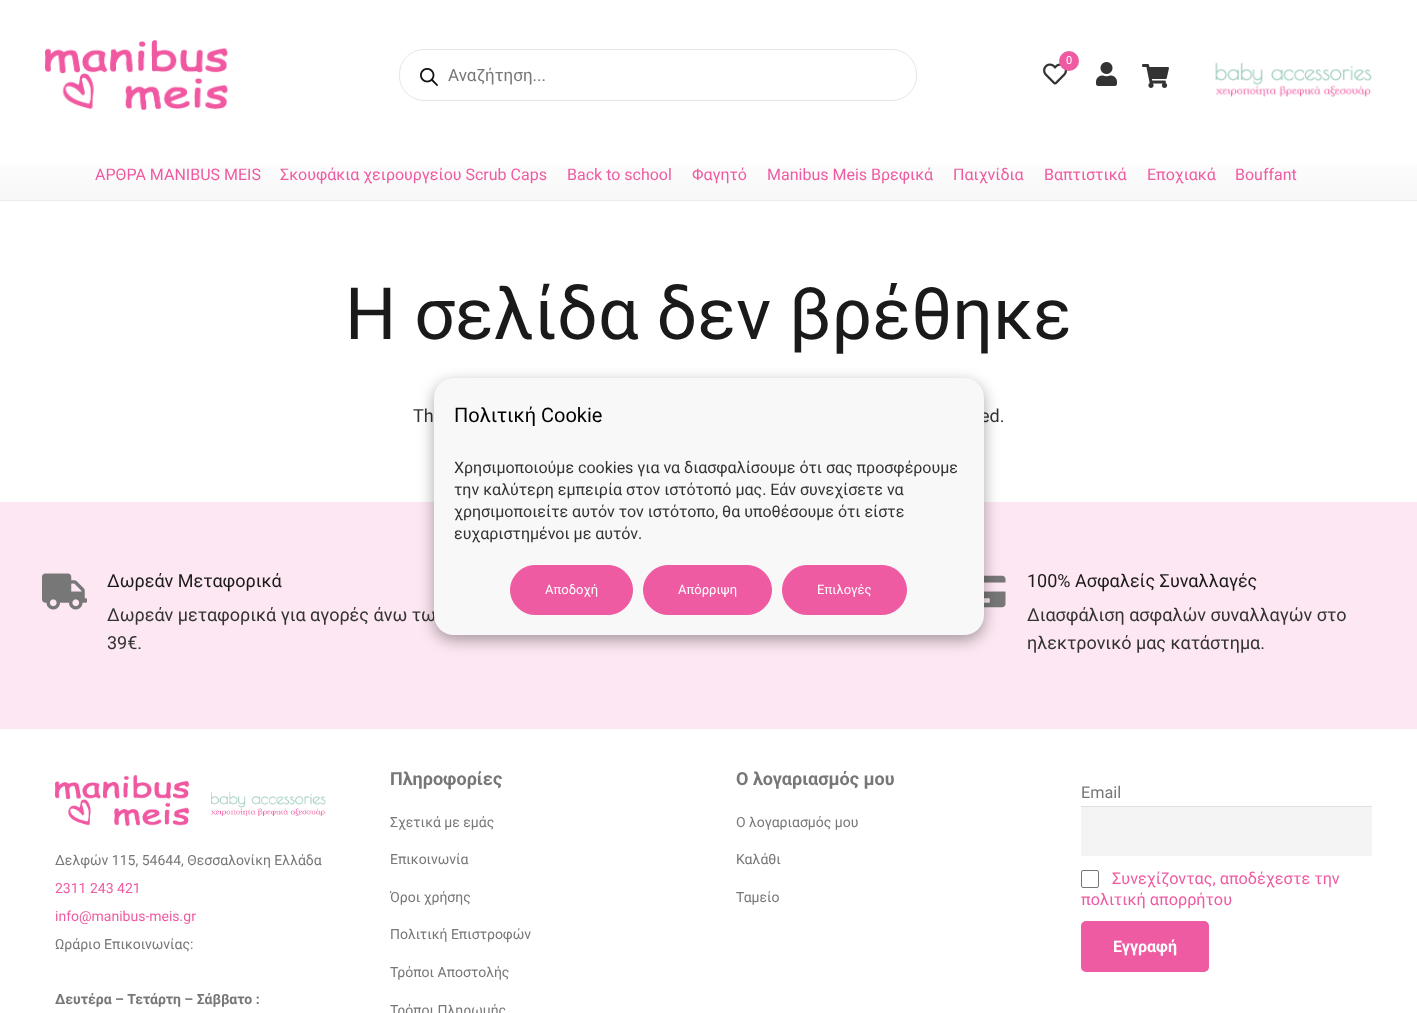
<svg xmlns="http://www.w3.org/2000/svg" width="1417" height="1013">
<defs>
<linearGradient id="g1" gradientUnits="userSpaceOnUse" x1="709" y1="200" x2="709" y2="150"><stop offset="0" stop-color="#f5f5f5" stop-opacity="0.7"/><stop offset="1" stop-color="#fff"/></linearGradient>
</defs>
<rect width="100%" height="100%" fill="#fff"/>
<image x="45" y="40" width="183" height="70" href="media/1.png"/>
<image x="1043" y="63" width="25" height="22" href="media/2.png"/>
<circle cx="1069" cy="61" r="10" fill="#ef5ba2"/>
<text x="1066" y="64" style="font-family:Roboto;font-size:11px;fill:#fff">0</text>
<image x="1096" y="62" width="21" height="24" href="media/3.png"/>
<image x="1142" y="64" width="27" height="24" href="media/4.png"/>
<image x="1215" y="62" width="157" height="35" href="media/5.png"/>
<rect x="399.5" y="49.5" width="517" height="51" rx="24.5" fill="none" stroke="#e6e6e6"/>
<image x="420" y="68" width="18" height="18" href="media/6.png"/>
<text x="448" y="81" style="font-family:Roboto;font-size:17px;fill:#777">Αναζήτηση...</text>
<rect y="200" width="1417" height="1" fill="#ebebeb"/>
<rect y="164" width="1417" height="36" fill="url(#g1)"/>
<text x="95" y="180" style="font-family:Roboto;font-size:16px;fill:#ef5ba2">ΑΡΘΡΑ MANIBUS MEIS</text>
<text x="280" y="180" style="font-family:Roboto;font-size:16px;fill:#ef5ba2">Σκουφάκια χειρουργείου Scrub Caps</text>
<text x="567" y="180" style="font-family:Roboto;font-size:16px;fill:#ef5ba2">Back to school</text>
<text x="692" y="180" style="font-family:Roboto;font-size:16px;fill:#ef5ba2">Φαγητό</text>
<text x="767" y="180" style="font-family:Roboto;font-size:16px;fill:#ef5ba2">Manibus Meis Βρεφικά</text>
<text x="953" y="180" style="font-family:Roboto;font-size:16px;fill:#ef5ba2">Παιχνίδια</text>
<text x="1044" y="180" style="font-family:Roboto;font-size:16px;fill:#ef5ba2">Βαπτιστικά</text>
<text x="1147" y="180" style="font-family:Roboto;font-size:16px;fill:#ef5ba2">Εποχιακά</text>
<text x="1235" y="180" style="font-family:Roboto;font-size:16px;fill:#ef5ba2">Bouffant</text>
<text x="345" y="339" style="font-family:Roboto;font-size:72px;fill:#1a1a1a">Η σελίδα δεν βρέθηκε</text>
<text x="413" y="422" style="font-family:Roboto;font-size:18px;fill:#333">Th</text>
<text x="980" y="422" style="font-family:Roboto;font-size:18px;fill:#333">ed.</text>
<rect y="502" width="1417" height="227" fill="#fde7f2"/>
<image x="984" y="575" width="22" height="33" href="media/8.png"/>
<rect x="434" y="383" width="550" height="257" rx="20" fill="#00000059" filter="blur(7.5px)"/>
<text x="107" y="621" style="font-family:Roboto;font-size:18px;fill:#333">Δωρεάν μεταφορικά για αγορές άνω τω</text>
<rect x="434" y="378" width="550" height="257" rx="20" fill="#f8f8f8"/>
<text x="454" y="422" style="font-family:Roboto;font-size:20px;fill:#000">Πολιτική Cookie</text>
<text x="454" y="473" style="font-family:Roboto;font-size:16px;fill:#333">Χρησιμοποιούμε cookies για να διασφαλίσουμε ότι σας προσφέρουμε</text>
<text x="454" y="495" style="font-family:Roboto;font-size:16px;fill:#333">την καλύτερη εμπειρία στον ιστότοπό μας. Εάν συνεχίσετε να</text>
<text x="454" y="517" style="font-family:Roboto;font-size:16px;fill:#333">χρησιμοποιείτε αυτόν τον ιστότοπο, θα υποθέσουμε ότι είστε</text>
<text x="454" y="539" style="font-family:Roboto;font-size:16px;fill:#333">ευχαριστημένοι με αυτόν.</text>
<rect x="510.5" y="565.5" width="122" height="49" rx="24.5" fill="#ef5ba2" stroke="#ef5ba2"/>
<text x="545" y="594" style="font-family:Roboto;font-size:13px;fill:#fff">Αποδοχή</text>
<rect x="643.5" y="565.5" width="128" height="49" rx="24.5" fill="#ef5ba2" stroke="#ef5ba2"/>
<text x="678" y="594" style="font-family:Roboto;font-size:13px;fill:#fff">Απόρριψη</text>
<rect x="782.5" y="565.5" width="124" height="49" rx="24.5" fill="#ef5ba2" stroke="#ef5ba2"/>
<text x="817" y="594" style="font-family:Roboto;font-size:13px;fill:#fff">Επιλογές</text>
<image x="42" y="573" width="45" height="37" href="media/7.png"/>
<text x="107" y="587" style="font-family:Roboto;font-size:18px;fill:#1a1a1a">Δωρεάν Μεταφορικά</text>
<text x="107" y="649" style="font-family:Roboto;font-size:18px;fill:#333">39€.</text>
<text x="1027" y="587" style="font-family:Roboto;font-size:18px;fill:#1a1a1a">100% Ασφαλείς Συναλλαγές</text>
<text x="1027" y="621" style="font-family:Roboto;font-size:18px;fill:#333">Διασφάλιση ασφαλών συναλλαγών στο</text>
<text x="1027" y="649" style="font-family:Roboto;font-size:18px;fill:#333">ηλεκτρονικό μας κατάστημα.</text>
<image x="55" y="775" width="271" height="51" href="media/9.png"/>
<text x="55" y="865" style="font-family:Roboto;font-size:14px;fill:#777">Δελφών 115, 54644, Θεσσαλονίκη Ελλάδα</text>
<text x="55" y="893" style="font-family:Roboto;font-size:14px;fill:#ef5ba2">2311 243 421</text>
<text x="55" y="921" style="font-family:Roboto;font-size:14px;fill:#ef5ba2">info@manibus-meis.gr</text>
<text x="55" y="949" style="font-family:Roboto;font-size:14px;fill:#777">Ωράριο Επικοινωνίας:</text>
<text x="55" y="1004" style="font-family:Roboto;font-size:14px;font-weight:bold;fill:#777">Δευτέρα – Τετάρτη – Σάββατο :</text>
<text x="390" y="785" style="font-family:Roboto;font-size:18px;font-weight:bold;fill:#777">Πληροφορίες</text>
<text x="390" y="827" style="font-family:Roboto;font-size:14px;fill:#777">Σχετικά με εμάς</text>
<text x="390" y="864" style="font-family:Roboto;font-size:14px;fill:#777">Επικοινωνία</text>
<text x="390" y="902" style="font-family:Roboto;font-size:14px;fill:#777">Όροι χρήσης</text>
<text x="390" y="939" style="font-family:Roboto;font-size:14px;fill:#777">Πολιτική Επιστροφών</text>
<text x="390" y="977" style="font-family:Roboto;font-size:14px;fill:#777">Τρόποι Αποστολής</text>
<text x="390" y="1015" style="font-family:Roboto;font-size:14px;fill:#777">Τρόποι Πληρωμής</text>
<text x="736" y="785" style="font-family:Roboto;font-size:18px;font-weight:bold;fill:#777">Ο λογαριασμός μου</text>
<text x="736" y="827" style="font-family:Roboto;font-size:14px;fill:#777">Ο λογαριασμός μου</text>
<text x="736" y="864" style="font-family:Roboto;font-size:14px;fill:#777">Καλάθι</text>
<text x="736" y="902" style="font-family:Roboto;font-size:14px;fill:#777">Ταμείο</text>
<text x="1081" y="798" style="font-family:Roboto;font-size:16.25px;fill:#777">Email</text>
<rect x="1081" y="807" width="291" height="49" fill="#f4f4f4"/>
<rect x="1081" y="806" width="291" height="1" fill="#e0e0e0"/>
<rect x="1081.5" y="870.5" width="17" height="17" rx="1.5" fill="none" stroke="#767676"/>
<text x="1112" y="884" style="font-family:Roboto;font-size:16.25px;fill:#ef5ba2">Συνεχίζοντας, αποδέχεστε την</text>
<text x="1081" y="905" style="font-family:Roboto;font-size:16.25px;fill:#ef5ba2">πολιτική απορρήτου</text>
<rect x="1081" y="921" width="128" height="51" rx="5" fill="#ef5ba2"/>
<text x="1113" y="952" style="font-family:Roboto;font-size:16px;font-weight:bold;fill:#fff">Εγγραφή</text>
</svg>
